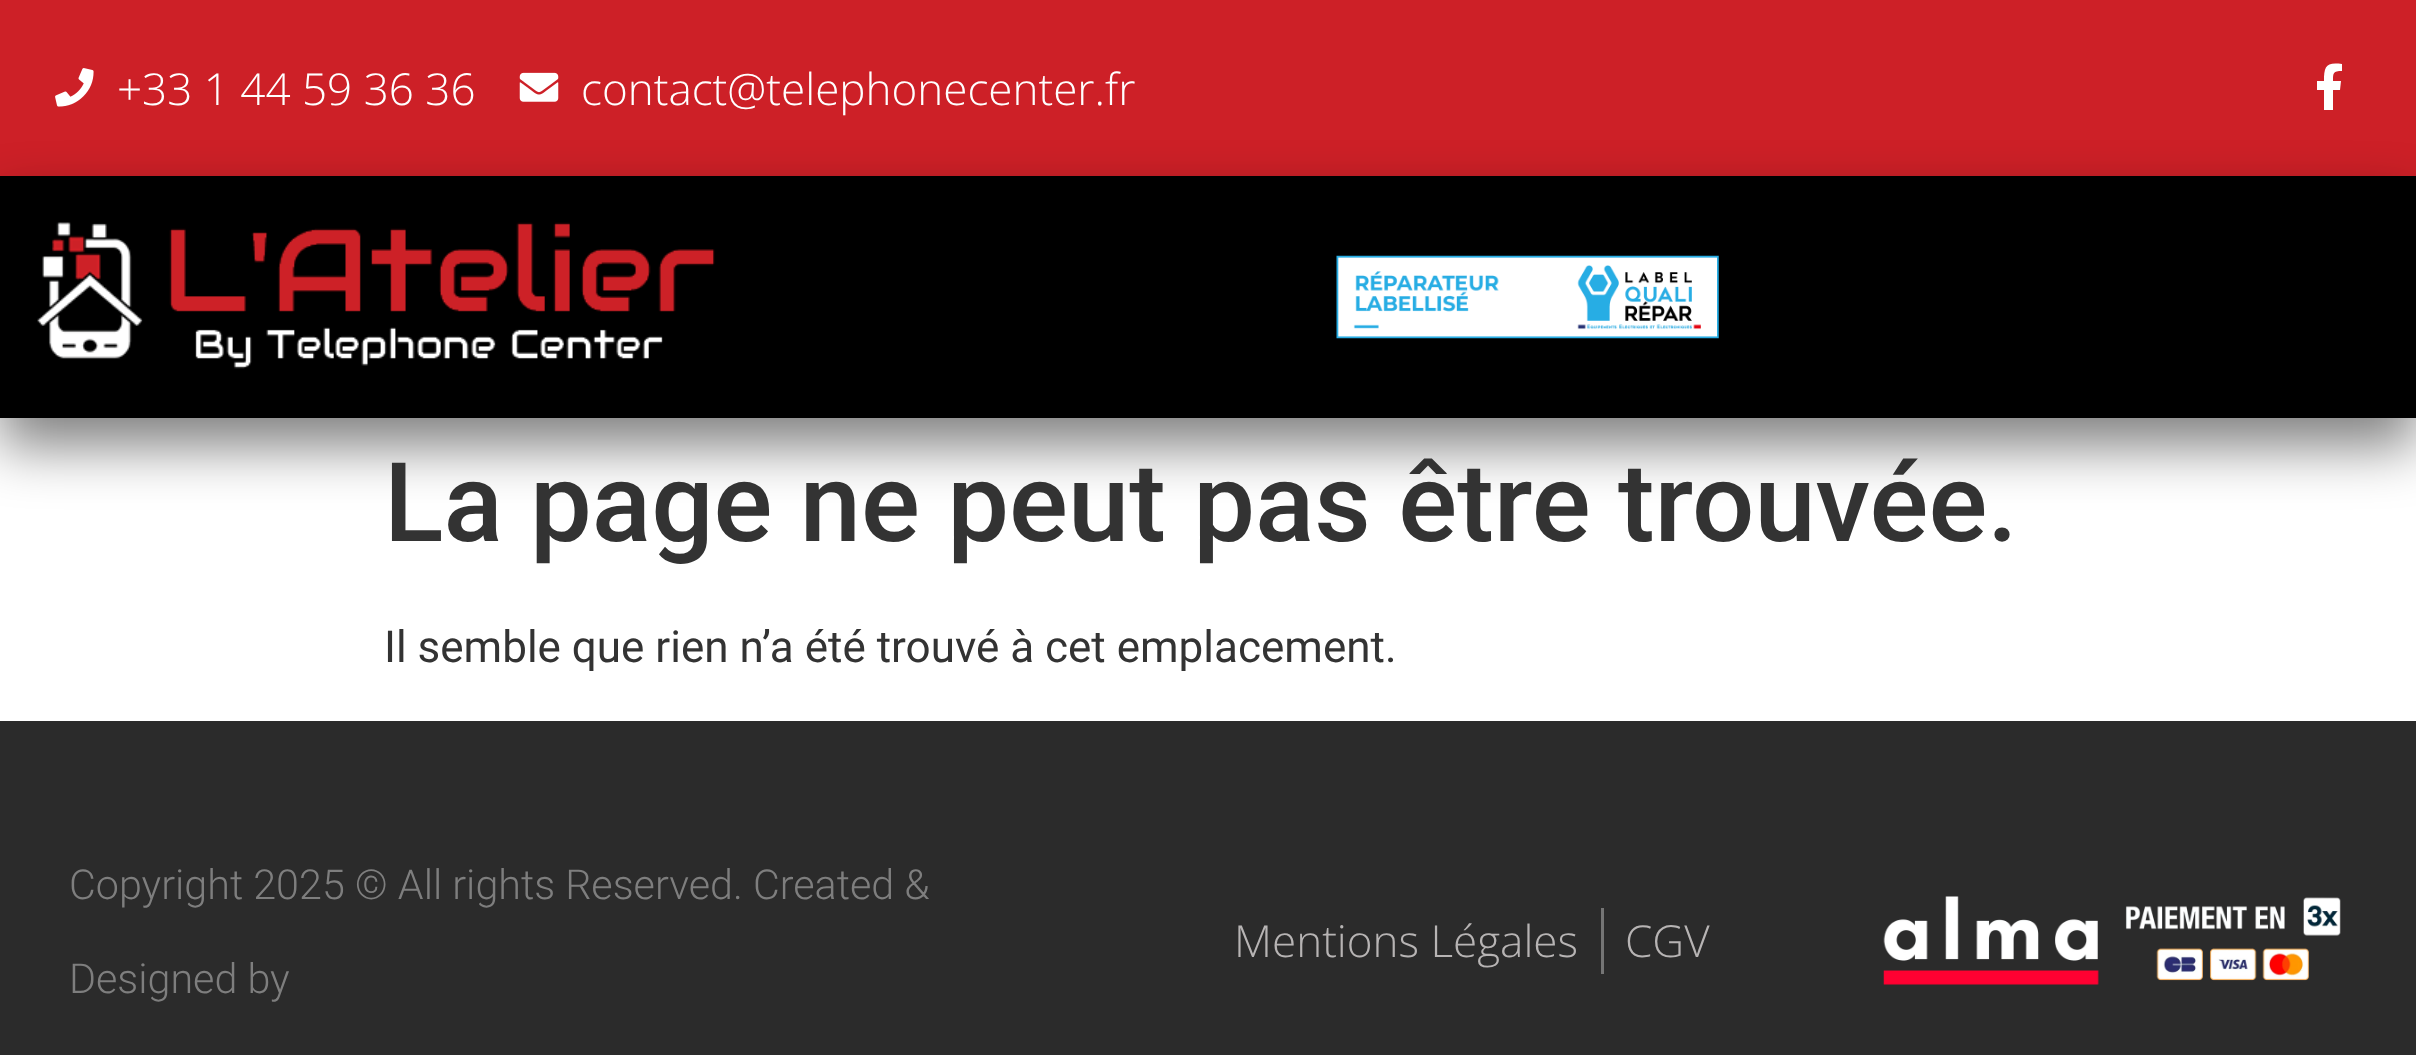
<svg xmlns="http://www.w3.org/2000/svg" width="2416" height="1055">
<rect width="100%" height="100%" fill="#fff"/>
<rect width="2416" height="176" fill="#cd2027"/>
<image x="55" y="68" width="39" height="39" href="media/1.png"/>
<text x="117" y="105" style="font-family:Open Sans;font-size:44px;font-weight:300;fill:#fff">+33 1 44 59 36 36</text>
<image x="519" y="72" width="40" height="30" href="media/2.png"/>
<text x="581" y="105" style="font-family:Open Sans;font-size:44px;font-weight:300;fill:#fff">contact@telephonecenter.fr</text>
<path d="M2340 90h-7v20h-9v-20h-7v-9h7c0-15 2-19 18-17v7c-9 0-9 2-9 10h8z" fill="#fff"/>
<rect y="204" width="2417" height="242" fill="#00000080" filter="blur(27.5px)"/>
<rect y="176" width="2416" height="242" fill="#000"/>
<image x="37" y="222" width="678" height="147" href="media/3.png"/>
<image x="1336" y="255" width="383" height="84" href="media/4.png"/>
<text x="384" y="541" style="font-family:Roboto;font-size:110px;font-weight:500;fill:#333">La page ne peut pas être trouvée.</text>
<text x="384" y="662" style="font-family:Roboto;font-size:44px;fill:#333">Il semble que rien n’a été trouvé à cet emplacement.</text>
<rect y="721" width="2416" height="334" fill="#2b2b2b"/>
<text x="69" y="899" style="font-family:Roboto;font-size:41.25px;font-weight:300;fill:#7e7e7e">Copyright 2025 © All rights Reserved. Created &amp;</text>
<text x="69" y="993" style="font-family:Roboto;font-size:41.25px;font-weight:300;fill:#7e7e7e">Designed by</text>
<text x="1234" y="957" style="font-family:Open Sans;font-size:44px;font-weight:300;fill:#b7b4b4">Mentions Légales</text>
<rect x="1601" y="908" width="3" height="66" fill="#757575"/>
<text x="1625" y="957" style="font-family:Open Sans;font-size:44px;font-weight:300;fill:#b7b4b4">CGV</text>
<image x="1883" y="896" width="458" height="89" href="media/5.png"/>
</svg>
